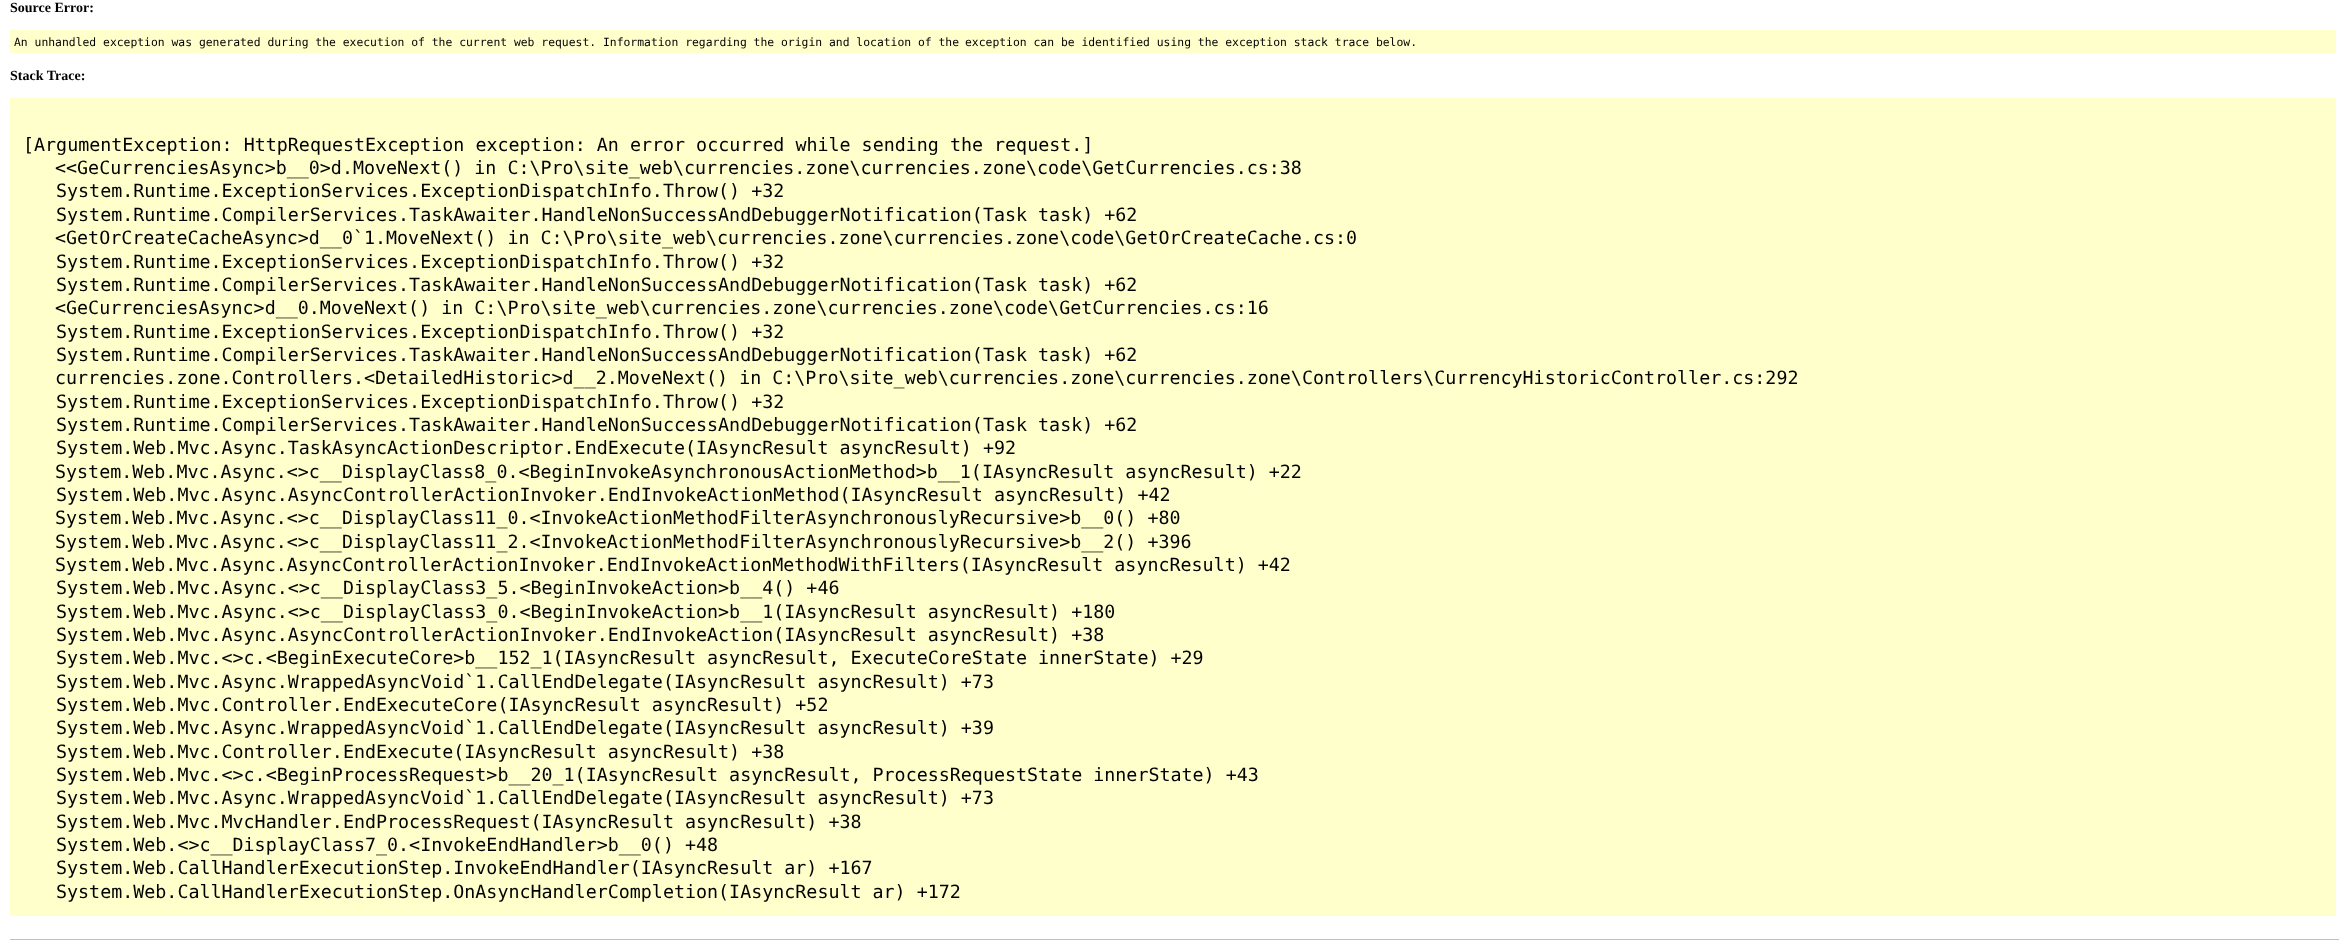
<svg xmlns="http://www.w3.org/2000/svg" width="2346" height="950">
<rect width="100%" height="100%" fill="#fff"/>
<text x="10" y="12" style="font-family:Liberation Serif;font-size:14px;font-weight:bold;fill:#000">Source Error:</text>
<rect x="10" y="30" width="2326" height="23" fill="#ffc"/>
<text x="14" y="46" style="font-family:DejaVu Sans Mono;font-size:11.38px;fill:#000">An unhandled exception was generated during the execution of the current web request. Information regarding the origin and location of the</text>
<text x="965" y="46" style="font-family:DejaVu Sans Mono;font-size:11.38px;fill:#000">exception can be identified using the exception stack trace below.</text>
<text x="10" y="80" style="font-family:Liberation Serif;font-size:14px;font-weight:bold;fill:#000">Stack Trace:</text>
<rect x="10" y="98" width="2326" height="818" fill="#ffc"/>
<text x="23" y="151" style="font-family:DejaVu Sans Mono;font-size:18.33px;fill:#000">[ArgumentException: HttpRequestException exception: An error occurred while sending the request.]</text>
<text x="55" y="174" style="font-family:DejaVu Sans Mono;font-size:18.33px;fill:#000">&lt;&lt;GeCurrenciesAsync&gt;b__0&gt;d.MoveNext() in C:\Pro\site_web\currencies.zone\currencies.zone\code\GetCurrencies.cs:38</text>
<text x="56" y="197" style="font-family:DejaVu Sans Mono;font-size:18.33px;fill:#000">System.Runtime.ExceptionServices.ExceptionDispatchInfo.Throw() +32</text>
<text x="56" y="221" style="font-family:DejaVu Sans Mono;font-size:18.33px;fill:#000">System.Runtime.CompilerServices.TaskAwaiter.HandleNonSuccessAndDebuggerNotification(Task task) +62</text>
<text x="55" y="244" style="font-family:DejaVu Sans Mono;font-size:18.33px;fill:#000">&lt;GetOrCreateCacheAsync&gt;d__0`1.MoveNext() in C:\Pro\site_web\currencies.zone\currencies.zone\code\GetOrCreateCache.cs:0</text>
<text x="56" y="268" style="font-family:DejaVu Sans Mono;font-size:18.33px;fill:#000">System.Runtime.ExceptionServices.ExceptionDispatchInfo.Throw() +32</text>
<text x="56" y="291" style="font-family:DejaVu Sans Mono;font-size:18.33px;fill:#000">System.Runtime.CompilerServices.TaskAwaiter.HandleNonSuccessAndDebuggerNotification(Task task) +62</text>
<text x="55" y="314" style="font-family:DejaVu Sans Mono;font-size:18.33px;fill:#000">&lt;GeCurrenciesAsync&gt;d__0.MoveNext() in C:\Pro\site_web\currencies.zone\currencies.zone\code\GetCurrencies.cs:16</text>
<text x="56" y="338" style="font-family:DejaVu Sans Mono;font-size:18.33px;fill:#000">System.Runtime.ExceptionServices.ExceptionDispatchInfo.Throw() +32</text>
<text x="56" y="361" style="font-family:DejaVu Sans Mono;font-size:18.33px;fill:#000">System.Runtime.CompilerServices.TaskAwaiter.HandleNonSuccessAndDebuggerNotification(Task task) +62</text>
<text x="55" y="384" style="font-family:DejaVu Sans Mono;font-size:18.33px;fill:#000">currencies.zone.Controllers.&lt;DetailedHistoric&gt;d__2.MoveNext() in C:\Pro\site_web\currencies.zone\currencies.zone\Controllers\CurrencyHistoricController.cs:292</text>
<text x="56" y="408" style="font-family:DejaVu Sans Mono;font-size:18.33px;fill:#000">System.Runtime.ExceptionServices.ExceptionDispatchInfo.Throw() +32</text>
<text x="56" y="431" style="font-family:DejaVu Sans Mono;font-size:18.33px;fill:#000">System.Runtime.CompilerServices.TaskAwaiter.HandleNonSuccessAndDebuggerNotification(Task task) +62</text>
<text x="56" y="454" style="font-family:DejaVu Sans Mono;font-size:18.33px;fill:#000">System.Web.Mvc.Async.TaskAsyncActionDescriptor.EndExecute(IAsyncResult asyncResult) +92</text>
<text x="55" y="478" style="font-family:DejaVu Sans Mono;font-size:18.33px;fill:#000">System.Web.Mvc.Async.&lt;&gt;c__DisplayClass8_0.&lt;BeginInvokeAsynchronousActionMethod&gt;b__1(IAsyncResult asyncResult) +22</text>
<text x="56" y="501" style="font-family:DejaVu Sans Mono;font-size:18.33px;fill:#000">System.Web.Mvc.Async.AsyncControllerActionInvoker.EndInvokeActionMethod(IAsyncResult asyncResult) +42</text>
<text x="55" y="524" style="font-family:DejaVu Sans Mono;font-size:18.33px;fill:#000">System.Web.Mvc.Async.&lt;&gt;c__DisplayClass11_0.&lt;InvokeActionMethodFilterAsynchronouslyRecursive&gt;b__0() +80</text>
<text x="55" y="548" style="font-family:DejaVu Sans Mono;font-size:18.33px;fill:#000">System.Web.Mvc.Async.&lt;&gt;c__DisplayClass11_2.&lt;InvokeActionMethodFilterAsynchronouslyRecursive&gt;b__2() +396</text>
<text x="55" y="571" style="font-family:DejaVu Sans Mono;font-size:18.33px;fill:#000">System.Web.Mvc.Async.AsyncControllerActionInvoker.EndInvokeActionMethodWithFilters(IAsyncResult asyncResult) +42</text>
<text x="56" y="594" style="font-family:DejaVu Sans Mono;font-size:18.33px;fill:#000">System.Web.Mvc.Async.&lt;&gt;c__DisplayClass3_5.&lt;BeginInvokeAction&gt;b__4() +46</text>
<text x="56" y="618" style="font-family:DejaVu Sans Mono;font-size:18.33px;fill:#000">System.Web.Mvc.Async.&lt;&gt;c__DisplayClass3_0.&lt;BeginInvokeAction&gt;b__1(IAsyncResult asyncResult) +180</text>
<text x="56" y="641" style="font-family:DejaVu Sans Mono;font-size:18.33px;fill:#000">System.Web.Mvc.Async.AsyncControllerActionInvoker.EndInvokeAction(IAsyncResult asyncResult) +38</text>
<text x="56" y="664" style="font-family:DejaVu Sans Mono;font-size:18.33px;fill:#000">System.Web.Mvc.&lt;&gt;c.&lt;BeginExecuteCore&gt;b__152_1(IAsyncResult asyncResult, ExecuteCoreState innerState) +29</text>
<text x="56" y="688" style="font-family:DejaVu Sans Mono;font-size:18.33px;fill:#000">System.Web.Mvc.Async.WrappedAsyncVoid`1.CallEndDelegate(IAsyncResult asyncResult) +73</text>
<text x="56" y="711" style="font-family:DejaVu Sans Mono;font-size:18.33px;fill:#000">System.Web.Mvc.Controller.EndExecuteCore(IAsyncResult asyncResult) +52</text>
<text x="56" y="734" style="font-family:DejaVu Sans Mono;font-size:18.33px;fill:#000">System.Web.Mvc.Async.WrappedAsyncVoid`1.CallEndDelegate(IAsyncResult asyncResult) +39</text>
<text x="56" y="758" style="font-family:DejaVu Sans Mono;font-size:18.33px;fill:#000">System.Web.Mvc.Controller.EndExecute(IAsyncResult asyncResult) +38</text>
<text x="56" y="781" style="font-family:DejaVu Sans Mono;font-size:18.33px;fill:#000">System.Web.Mvc.&lt;&gt;c.&lt;BeginProcessRequest&gt;b__20_1(IAsyncResult asyncResult, ProcessRequestState innerState) +43</text>
<text x="56" y="804" style="font-family:DejaVu Sans Mono;font-size:18.33px;fill:#000">System.Web.Mvc.Async.WrappedAsyncVoid`1.CallEndDelegate(IAsyncResult asyncResult) +73</text>
<text x="56" y="828" style="font-family:DejaVu Sans Mono;font-size:18.33px;fill:#000">System.Web.Mvc.MvcHandler.EndProcessRequest(IAsyncResult asyncResult) +38</text>
<text x="56" y="851" style="font-family:DejaVu Sans Mono;font-size:18.33px;fill:#000">System.Web.&lt;&gt;c__DisplayClass7_0.&lt;InvokeEndHandler&gt;b__0() +48</text>
<text x="56" y="874" style="font-family:DejaVu Sans Mono;font-size:18.33px;fill:#000">System.Web.CallHandlerExecutionStep.InvokeEndHandler(IAsyncResult ar) +167</text>
<text x="56" y="898" style="font-family:DejaVu Sans Mono;font-size:18.33px;fill:#000">System.Web.CallHandlerExecutionStep.OnAsyncHandlerCompletion(IAsyncResult ar) +172</text>
<rect x="10" y="939" width="2329" height="1" fill="#c0c0c0"/>
</svg>
